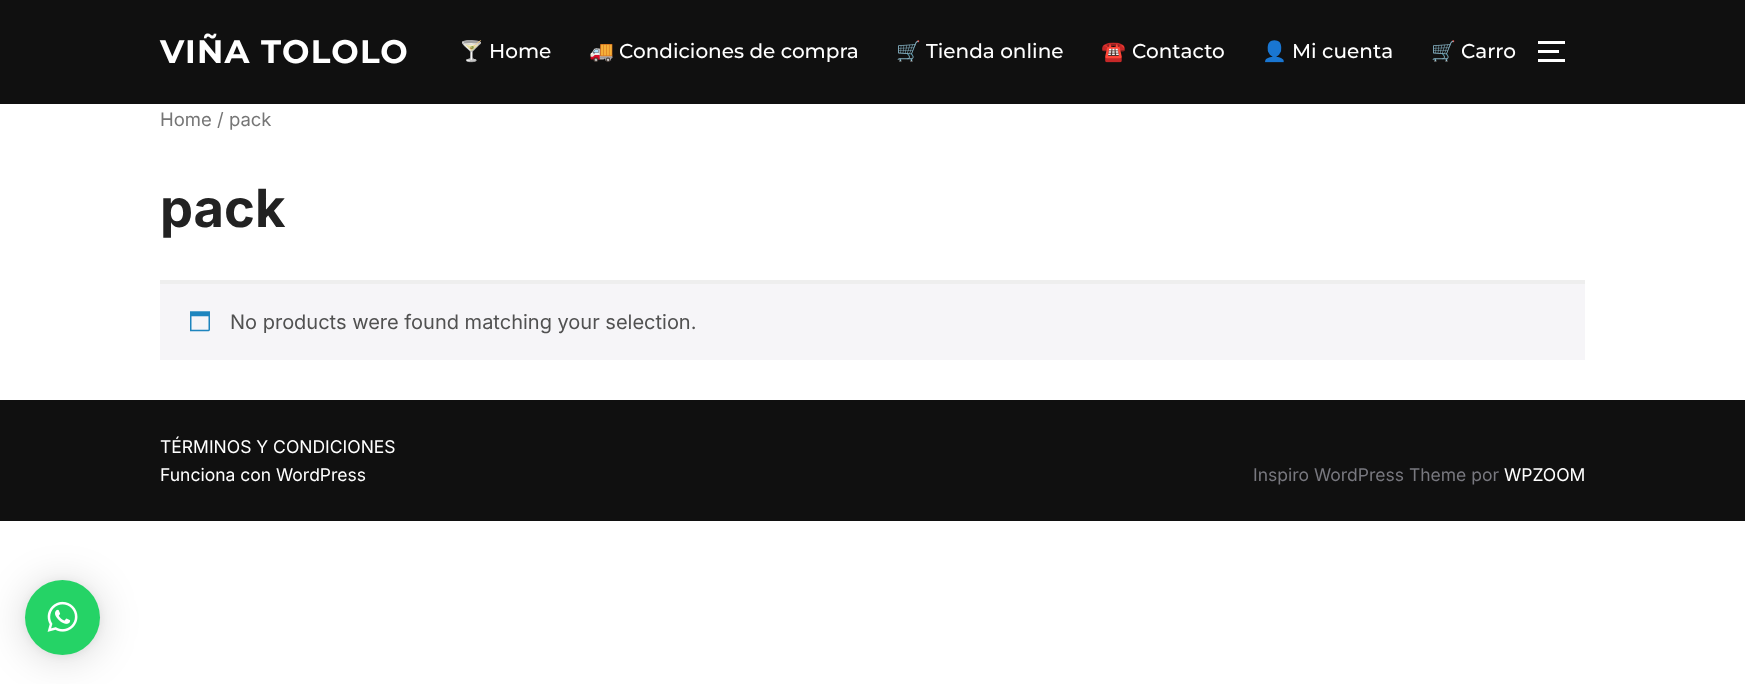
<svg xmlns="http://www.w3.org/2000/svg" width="1745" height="684">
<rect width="100%" height="100%" fill="#fff"/>
<rect width="1745" height="104" fill="#101010"/>
<text x="160" y="63" style="font-family:Montserrat;font-size:32.5px;font-weight:bold;letter-spacing:1.25px;fill:#fff">VIÑA TOLOLO</text>
<text x="459" y="58" style="font-family:Noto Color Emoji;font-size:20px;fill:#fff">🍸</text>
<text x="489" y="58" style="font-family:Montserrat;font-size:20px;font-weight:500;fill:#fff">Home</text>
<text x="589" y="58" style="font-family:Noto Color Emoji;font-size:20px;fill:#fff">🚚</text>
<text x="619" y="58" style="font-family:Montserrat;font-size:20px;font-weight:500;fill:#fff">Condiciones de compra</text>
<text x="896" y="58" style="font-family:Noto Color Emoji;font-size:20px;fill:#fff">🛒</text>
<text x="926" y="58" style="font-family:Montserrat;font-size:20px;font-weight:500;fill:#fff">Tienda online</text>
<text x="1101" y="58" style="font-family:Noto Color Emoji;font-size:20px;fill:#fff">☎️</text>
<text x="1132" y="58" style="font-family:Montserrat;font-size:20px;font-weight:500;fill:#fff">Contacto</text>
<text x="1262" y="58" style="font-family:Noto Color Emoji;font-size:20px;fill:#fff">👤</text>
<text x="1292" y="58" style="font-family:Montserrat;font-size:20px;font-weight:500;fill:#fff">Mi cuenta</text>
<text x="1431" y="58" style="font-family:Noto Color Emoji;font-size:20px;fill:#fff">🛒</text>
<text x="1461" y="58" style="font-family:Montserrat;font-size:20px;font-weight:500;fill:#fff">Carro</text>
<rect x="1538" y="41" width="27" height="3" fill="#fff"/>
<rect x="1538" y="50" width="21" height="3" fill="#fff"/>
<rect x="1538" y="59" width="27" height="3" fill="#fff"/>
<text x="160" y="126" style="font-family:Inter;font-size:18.5px;fill:#767676">Home / pack</text>
<text x="160" y="227" style="font-family:Inter;font-size:52.5px;font-weight:bold;fill:#222">pack</text>
<rect x="160" y="284" width="1425" height="76" fill="#f6f5f8"/>
<rect x="160" y="280" width="1425" height="4" fill="#eee"/>
<image x="190" y="311" width="20" height="21" href="media/1.png"/>
<text x="230" y="329" style="font-family:Inter;font-size:20px;fill:#515151">No products were found matching your selection.</text>
<rect y="400" width="1745" height="121" fill="#101010"/>
<text x="160" y="453" style="font-family:Inter;font-size:17.5px;fill:#fff">TÉRMINOS Y CONDICIONES</text>
<text x="160" y="481" style="font-family:Inter;font-size:17.5px;fill:#fff">Funciona con WordPress</text>
<text x="1253" y="481" style="font-family:Inter;font-size:17.5px;fill:#78787f">Inspiro WordPress Theme por</text>
<text x="1504" y="481" style="font-family:Inter;font-size:17.5px;fill:#fff">WPZOOM</text>
<rect x="25" y="583" width="75" height="75" rx="37.5" fill="#00000029" filter="blur(20px)"/>
<rect x="25" y="581" width="75" height="75" rx="37.5" fill="#0000000f" filter="blur(4px)"/>
<circle cx="62.5" cy="617.5" r="37.5" fill="#25d366"/>
<image x="47" y="601" width="31" height="31" href="media/2.png"/>
</svg>
